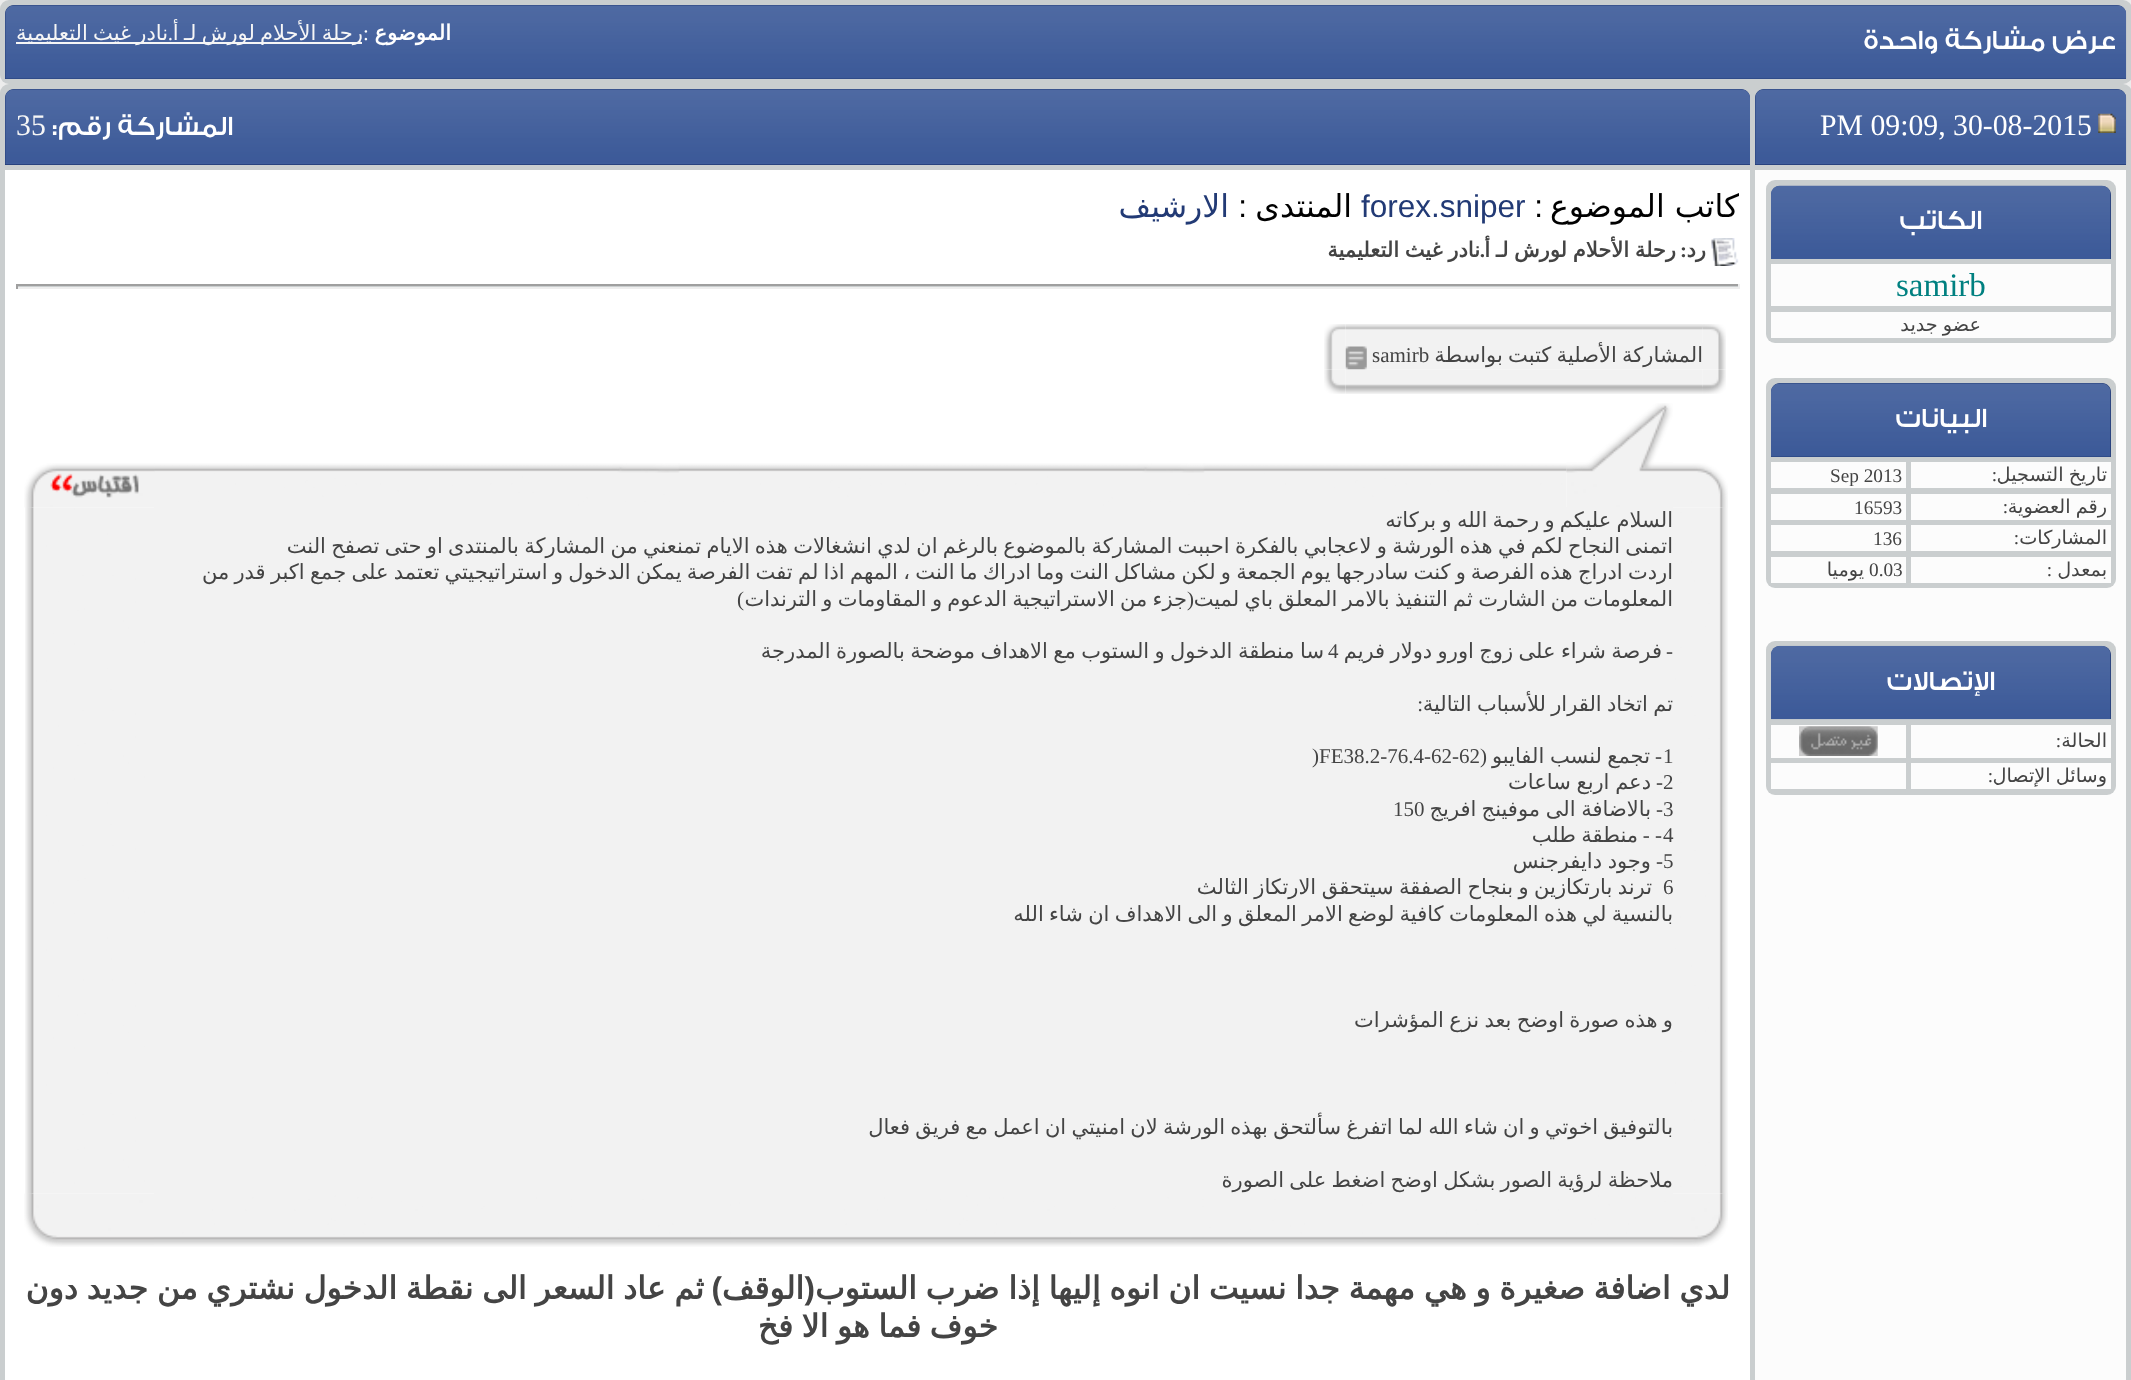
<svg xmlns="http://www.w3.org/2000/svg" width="2131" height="1380">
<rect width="100%" height="100%" fill="#ececec"/>
<rect width="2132" height="84" rx="9" fill="#cacecf"/>
<path d="M14 5h2103c5 0 9 4 9 9v65h-2121v-65c0-5 4-9 9-9z" fill="#223a75"/>
<image x="5" y="5" width="2122" height="74" href="media/1.png"/>
<text x="2116" y="49" style="font-family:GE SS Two;font-size:28px;font-weight:500;direction:rtl;fill:#fff">عرض مشاركة واحدة</text>
<text x="451" y="40" style="font-family:DejaVu Sans;font-size:21px;font-weight:bold;direction:rtl;fill:#fff">الموضوع</text>
<text x="363" y="40" style="font-family:Liberation Serif;font-size:21px;fill:#fff">:</text>
<rect x="16" y="42" width="346" height="2" fill="#f6f6f6"/>
<text x="363" y="40" word-spacing="-1.4" style="font-family:DejaVu Sans;font-size:21px;direction:rtl;fill:#f6f6f6">رحلة الأحلام لورش لـ أ</text>
<text x="168" y="40" word-spacing="-1.4" style="font-family:DejaVu Sans;font-size:21px;direction:rtl;fill:#f6f6f6">نادر غيث التعليمية</text>
<text x="173" y="40" style="font-family:Liberation Serif;font-size:21px;direction:rtl;fill:#f6f6f6">.</text>
<rect y="84" width="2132" height="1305" rx="9" fill="#cacecf"/>
<path d="M1764 89h353c5 0 9 4 9 9v67h-371v-67c0-5 4-9 9-9z" fill="#223a75"/>
<image x="1755" y="89" width="372" height="76" href="media/2.png"/>
<image x="2098" y="113" width="18" height="20" href="media/3.png"/>
<text x="1820" y="135" style="font-family:Liberation Serif;font-size:29.75px;fill:#fff">PM 09:09, 30-08-2015</text>
<path d="M14 89h1727c5 0 9 4 9 9v67h-1745v-67c0-5 4-9 9-9z" fill="#223a75"/>
<image x="5" y="89" width="1745" height="76" href="media/4.png"/>
<text x="233" y="135" style="font-family:GE SS Two;font-size:28px;font-weight:500;direction:rtl;fill:#fff">المشاركة رقم:</text>
<text x="16" y="135" style="font-family:Liberation Serif;font-size:29.75px;fill:#f6f6f6">35</text>
<rect x="1755" y="170" width="371" height="1210" fill="#fcfcfc"/>
<rect x="1766" y="180" width="350" height="163" rx="9" fill="#cacecf"/>
<path d="M1780 186h322c5 0 9 4 9 9v64h-340v-64c0-5 4-9 9-9z" fill="#223a75"/>
<image x="1771" y="185" width="340" height="74" href="media/5.png"/>
<text x="1982" y="229" style="font-family:GE SS Two;font-size:28px;font-weight:500;direction:rtl;fill:#fff">الكاتب</text>
<rect x="1771" y="264" width="340" height="42" fill="#fcfcfc"/>
<text x="1896" y="296" style="font-family:Liberation Serif;font-size:33px;fill:#008080">samirb</text>
<rect x="1771" y="312" width="340" height="26" fill="#fcfcfc"/>
<text x="1981" y="331" word-spacing="-1" style="font-family:DejaVu Sans;font-size:19.25px;direction:rtl;fill:#444">عضو جديد</text>
<rect x="1766" y="378" width="350" height="210" rx="9" fill="#cacecf"/>
<path d="M1780 383h322c5 0 9 4 9 9v65h-340v-65c0-5 4-9 9-9z" fill="#223a75"/>
<image x="1771" y="383" width="340" height="74" href="media/6.png"/>
<text x="1987" y="427" style="font-family:GE SS Two;font-size:28px;font-weight:500;direction:rtl;fill:#fff">البيانات</text>
<rect x="1911" y="462" width="200" height="26" fill="#fcfcfc"/>
<text x="2107" y="481" word-spacing="-1" style="font-family:DejaVu Sans;font-size:19.25px;direction:rtl;fill:#444">تاريخ التسجيل</text>
<text x="1997" y="481" style="font-family:Liberation Serif;font-size:19.25px;direction:rtl;fill:#444">:</text>
<rect x="1771" y="462" width="135" height="26" fill="#fcfcfc"/>
<text x="1830" y="482" style="font-family:Liberation Serif;font-size:19.25px;fill:#444">Sep 2013</text>
<rect x="1911" y="494" width="200" height="26" fill="#fcfcfc"/>
<text x="2107" y="513" word-spacing="-1" style="font-family:DejaVu Sans;font-size:19.25px;direction:rtl;fill:#444">رقم العضوية</text>
<text x="2008" y="513" style="font-family:Liberation Serif;font-size:19.25px;direction:rtl;fill:#444">:</text>
<rect x="1771" y="494" width="135" height="26" fill="#fcfcfc"/>
<text x="1854" y="514" style="font-family:Liberation Serif;font-size:19.25px;fill:#444">16593</text>
<rect x="1911" y="525" width="200" height="26" fill="#fcfcfc"/>
<text x="2107" y="544" style="font-family:DejaVu Sans;font-size:19.25px;direction:rtl;fill:#444">المشاركات</text>
<text x="2019" y="544" style="font-family:Liberation Serif;font-size:19.25px;direction:rtl;fill:#444">:</text>
<rect x="1771" y="525" width="135" height="26" fill="#fcfcfc"/>
<text x="1873" y="545" style="font-family:Liberation Serif;font-size:19.25px;fill:#444">136</text>
<rect x="1911" y="557" width="200" height="26" fill="#fcfcfc"/>
<text x="2107" y="576" style="font-family:DejaVu Sans;font-size:19.25px;direction:rtl;fill:#444">بمعدل</text>
<text x="2052" y="576" style="font-family:Liberation Serif;font-size:19.25px;direction:rtl;fill:#444">:</text>
<rect x="1771" y="557" width="135" height="26" fill="#fcfcfc"/>
<text x="1869" y="576" style="font-family:Liberation Serif;font-size:19.25px;fill:#444">0.03</text>
<text x="1864" y="576" style="font-family:DejaVu Sans;font-size:19.25px;direction:rtl;fill:#444">يوميا</text>
<rect x="1766" y="641" width="350" height="154" rx="9" fill="#cacecf"/>
<path d="M1780 646h322c5 0 9 4 9 9v64h-340v-64c0-5 4-9 9-9z" fill="#223a75"/>
<image x="1771" y="645" width="340" height="75" href="media/7.png"/>
<text x="1995" y="690" style="font-family:GE SS Two;font-size:28px;font-weight:500;direction:rtl;fill:#fff">الإتصالات</text>
<rect x="1911" y="725" width="200" height="33" fill="#fcfcfc"/>
<text x="2107" y="747" style="font-family:DejaVu Sans;font-size:19.25px;direction:rtl;fill:#444">الحالة</text>
<text x="2061" y="747" style="font-family:Liberation Serif;font-size:19.25px;direction:rtl;fill:#444">:</text>
<rect x="1771" y="725" width="135" height="33" fill="#fcfcfc"/>
<image x="1799" y="726" width="79" height="30" href="media/8.png"/>
<rect x="1911" y="763" width="200" height="26" fill="#fcfcfc"/>
<text x="2107" y="782" word-spacing="-1" style="font-family:DejaVu Sans;font-size:19.25px;direction:rtl;fill:#444">وسائل الإتصال</text>
<text x="1993" y="782" style="font-family:Liberation Serif;font-size:19.25px;direction:rtl;fill:#444">:</text>
<rect x="1771" y="763" width="135" height="26" fill="#fcfcfc"/>
<rect x="5" y="170" width="1745" height="1210" fill="#fff"/>
<text x="1739" y="217" style="font-family:DejaVu Sans;font-size:31.5px;direction:rtl;fill:#000">كاتب الموضوع</text>
<text x="1543" y="217" style="font-family:Liberation Sans;font-size:31.5px;direction:rtl;fill:#000">:</text>
<text x="1361" y="217" style="font-family:Liberation Sans;font-size:31.5px;fill:#223a75">forex.sniper</text>
<text x="1352" y="217" style="font-family:DejaVu Sans;font-size:31.5px;direction:rtl;fill:#000">المنتدى</text>
<text x="1247" y="217" style="font-family:Liberation Sans;font-size:31.5px;direction:rtl;fill:#000">:</text>
<text x="1229" y="217" style="font-family:DejaVu Sans;font-size:31.5px;direction:rtl;fill:#223a75">الارشيف</text>
<image x="1711" y="238" width="28" height="28" href="media/9.png"/>
<text x="1706" y="257" style="font-family:DejaVu Sans;font-size:21px;font-weight:bold;direction:rtl;fill:#444">رد</text>
<text x="1687" y="257" style="font-family:Liberation Serif;font-size:21px;font-weight:bold;direction:rtl;fill:#444">:</text>
<text x="1676" y="257" word-spacing="-1" style="font-family:DejaVu Sans;font-size:21px;font-weight:bold;direction:rtl;fill:#444">رحلة الأحلام لورش لـ أ</text>
<text x="1480" y="257" word-spacing="-1" style="font-family:DejaVu Sans;font-size:21px;font-weight:bold;direction:rtl;fill:#444">نادر غيث التعليمية</text>
<text x="1485" y="257" style="font-family:Liberation Serif;font-size:21px;font-weight:bold;direction:rtl;fill:#444">.</text>
<rect x="16" y="286" width="1724" height="1" fill="#cacecf"/>
<rect x="16" y="284" width="1724" height="2" fill="#9f9f9f"/>
<rect x="1738" y="284" width="2" height="5" fill="#eee"/>
<rect x="16" y="287" width="1724" height="2" fill="#eee"/>
<rect x="16" y="284" width="2" height="5" fill="#9f9f9f"/>
<image x="1346" y="324" width="357" height="19" href="media/11.png"/>
<image x="1702" y="324" width="24" height="19" href="media/10.png"/>
<image x="1324" y="324" width="22" height="19" href="media/12.png"/>
<image x="1703" y="343" width="23" height="26" href="media/13.png"/>
<rect x="1346" y="343" width="357" height="26" fill="#f2f2f2"/>
<text x="1703" y="362" word-spacing="-1.4" style="font-family:DejaVu Sans;font-size:21px;direction:rtl;fill:#444">المشاركة الأصلية كتبت بواسطة</text>
<text x="1372" y="362" style="font-family:Liberation Serif;font-size:21px;fill:#444">samirb</text>
<image x="1324" y="343" width="22" height="26" href="media/15.png"/>
<image x="1346" y="369" width="357" height="25" href="media/17.png"/>
<image x="1345" y="346" width="22" height="24" href="media/14.png"/>
<image x="1702" y="369" width="24" height="25" href="media/16.png"/>
<image x="1324" y="369" width="22" height="25" href="media/18.png"/>
<image x="1673" y="507" width="55" height="687" href="media/23.png"/>
<image x="1673" y="463" width="55" height="45" href="media/19.png"/>
<image x="154" y="463" width="1413" height="44" href="media/21.png"/>
<image x="1566" y="403" width="107" height="104" href="media/20.png"/>
<image x="25" y="507" width="129" height="687" href="media/24.png"/>
<image x="24" y="463" width="130" height="45" href="media/22.png"/>
<rect x="154" y="507" width="1519" height="687" fill="#f2f2f2"/>
<text x="1673" y="527" word-spacing="-1.4" style="font-family:DejaVu Sans;font-size:21px;direction:rtl;fill:#444">السلام عليكم و رحمة الله و بركاته</text>
<text x="1673" y="553" word-spacing="-1.4" style="font-family:DejaVu Sans;font-size:21px;direction:rtl;fill:#444">اتمنى النجاح لكم في هذه الورشة و لاعجابي بالفكرة احببت المشاركة بالموضوع بالرغم ان لدي انشغالات هذه الايام تمنعني من المشاركة بالمنتدى او حتى تصفح النت</text>
<text x="1673" y="579" word-spacing="-1.4" style="font-family:DejaVu Sans;font-size:21px;direction:rtl;fill:#444">اردت ادراج هذه الفرصة</text>
<text x="1466" y="579" word-spacing="-1.4" style="font-family:DejaVu Sans;font-size:21px;direction:rtl;fill:#444">و كنت سادرجها يوم الجمعة و لكن مشاكل النت وما ادراك ما النت</text>
<text x="910" y="579" word-spacing="-1.4" style="font-family:DejaVu Sans;font-size:21px;direction:rtl;fill:#444">، المهم اذا لم تفت الفرصة يمكن الدخول و استراتيجيتي تعتمد على جمع اكبر قدر من</text>
<text x="1187" y="606" word-spacing="-1.4" style="font-family:DejaVu Sans;font-size:21px;direction:rtl;fill:#444">جزء من الاستراتيجية الدعوم و المقاومات و الترندات</text>
<text x="1673" y="606" word-spacing="-1.4" style="font-family:DejaVu Sans;font-size:21px;direction:rtl;fill:#444">المعلومات من الشارت ثم التنفيذ بالامر المعلق باي لميت</text>
<text x="744" y="606" style="font-family:Liberation Serif;font-size:21px;direction:rtl;fill:#444">)</text>
<text x="1194" y="606" style="font-family:Liberation Serif;font-size:21px;direction:rtl;fill:#444">(</text>
<text x="1662" y="658" word-spacing="-1.25" style="font-family:DejaVu Sans;font-size:21px;direction:rtl;fill:#444">فرصة شراء على زوج اورو دولار فريم</text>
<text x="1324" y="658" word-spacing="-1.25" style="font-family:DejaVu Sans;font-size:21px;direction:rtl;fill:#444">سا منطقة الدخول و الستوب مع الاهداف موضحة بالصورة المدرجة</text>
<text x="1673" y="658" style="font-family:Liberation Serif;font-size:21px;direction:rtl;fill:#444">-</text>
<text x="1328" y="658" style="font-family:Liberation Serif;font-size:21px;fill:#444">4</text>
<text x="1673" y="711" word-spacing="-1.4" style="font-family:DejaVu Sans;font-size:21px;direction:rtl;fill:#444">تم اتخاد القرار للأسباب التالية</text>
<text x="1423" y="711" style="font-family:Liberation Serif;font-size:21px;direction:rtl;fill:#444">:</text>
<text x="1663" y="763" style="font-family:Liberation Serif;font-size:21px;fill:#444">1</text>
<text x="1662" y="763" style="font-family:Liberation Serif;font-size:21px;direction:rtl;fill:#444">-</text>
<text x="1650" y="763" style="font-family:DejaVu Sans;font-size:21px;direction:rtl;fill:#444">تجمع</text>
<text x="1602" y="763" word-spacing="-1" style="font-family:DejaVu Sans;font-size:21px;direction:rtl;fill:#444">لنسب الفايبو</text>
<text x="1487" y="763" style="font-family:Liberation Serif;font-size:21px;direction:rtl;fill:#444">(</text>
<text x="1312" y="763" style="font-family:Liberation Serif;font-size:21px;fill:#444">)FE38.2-76.4-62-62</text>
<text x="1663" y="789" style="font-family:Liberation Serif;font-size:21px;fill:#444">2</text>
<text x="1663" y="789" style="font-family:Liberation Serif;font-size:21px;direction:rtl;fill:#444">-</text>
<text x="1651" y="789" word-spacing="-1" style="font-family:DejaVu Sans;font-size:21px;direction:rtl;fill:#444">دعم اربع ساعات</text>
<text x="1663" y="816" style="font-family:Liberation Serif;font-size:21px;fill:#444">3</text>
<text x="1663" y="816" style="font-family:Liberation Serif;font-size:21px;direction:rtl;fill:#444">-</text>
<text x="1651" y="816" word-spacing="-1" style="font-family:DejaVu Sans;font-size:21px;direction:rtl;fill:#444">بالاضافة الى</text>
<text x="1540" y="816" word-spacing="-1.4" style="font-family:DejaVu Sans;font-size:21px;direction:rtl;fill:#444">موفينج افريج</text>
<text x="1393" y="816" style="font-family:Liberation Serif;font-size:21px;fill:#444">150</text>
<text x="1663" y="842" style="font-family:Liberation Serif;font-size:21px;fill:#444">4</text>
<text x="1662" y="842" style="font-family:Liberation Serif;font-size:21px;direction:rtl;fill:#444">- -</text>
<text x="1638" y="842" style="font-family:DejaVu Sans;font-size:21px;direction:rtl;fill:#444">منطقة</text>
<text x="1576" y="842" style="font-family:DejaVu Sans;font-size:21px;direction:rtl;fill:#444">طلب</text>
<text x="1663" y="868" style="font-family:Liberation Serif;font-size:21px;fill:#444">5</text>
<text x="1663" y="868" style="font-family:Liberation Serif;font-size:21px;direction:rtl;fill:#444">-</text>
<text x="1651" y="868" word-spacing="-1" style="font-family:DejaVu Sans;font-size:21px;direction:rtl;fill:#444">وجود دايفرجنس</text>
<text x="1663" y="894" style="font-family:Liberation Serif;font-size:21px;fill:#444">6</text>
<text x="1652" y="894" word-spacing="-1.25" style="font-family:DejaVu Sans;font-size:21px;direction:rtl;fill:#444">ترند بارتكازين و بنجاح الصفقة سيتحقق الارتكاز الثالث</text>
<text x="1673" y="921" word-spacing="-1.4" style="font-family:DejaVu Sans;font-size:21px;direction:rtl;fill:#444">بالنسية لي</text>
<text x="1577" y="921" word-spacing="-1.4" style="font-family:DejaVu Sans;font-size:21px;direction:rtl;fill:#444">هذه المعلومات كافية لوضع الامر المعلق و الى الاهداف ان شاء الله</text>
<text x="1673" y="1027" word-spacing="-1.4" style="font-family:DejaVu Sans;font-size:21px;direction:rtl;fill:#444">و هذه صورة اوضح بعد نزع المؤشرات</text>
<text x="1673" y="1134" word-spacing="-1.4" style="font-family:DejaVu Sans;font-size:21px;direction:rtl;fill:#444">بالتوفيق اخوتي و ان شاء الله لما اتفرغ سألتحق بهذه الورشة لان امنيتي ان اعمل مع فريق فعال</text>
<text x="1673" y="1187" word-spacing="-1.4" style="font-family:DejaVu Sans;font-size:21px;direction:rtl;fill:#444">ملاحظة لرؤية الصور بشكل اوضح اضغط على الصورة</text>
<image x="1673" y="1193" width="55" height="54" href="media/25.png"/>
<image x="154" y="1194" width="1519" height="53" href="media/26.png"/>
<image x="24" y="1193" width="130" height="54" href="media/27.png"/>
<text x="1730" y="1299" word-spacing="-1.25" style="font-family:DejaVu Sans;font-size:31.5px;font-weight:bold;direction:rtl;fill:#444">لدي اضافة صغيرة و هي مهمة جدا نسيت ان انوه إليها إذا ضرب الستوب</text>
<text x="815" y="1299" style="font-family:Liberation Sans;font-size:31.5px;font-weight:bold;direction:rtl;fill:#444">(</text>
<text x="804" y="1299" style="font-family:DejaVu Sans;font-size:31.5px;font-weight:bold;direction:rtl;fill:#444">الوقف</text>
<text x="704" y="1299" word-spacing="-1.25" style="font-family:DejaVu Sans;font-size:31.5px;font-weight:bold;direction:rtl;fill:#444">ثم عاد السعر الى نقطة الدخول نشتري من جديد دون</text>
<text x="722" y="1299" style="font-family:Liberation Sans;font-size:31.5px;font-weight:bold;direction:rtl;fill:#444">)</text>
<text x="998" y="1337" word-spacing="-1.5" style="font-family:DejaVu Sans;font-size:31.5px;font-weight:bold;direction:rtl;fill:#444">خوف فما هو الا فخ</text>
</svg>
